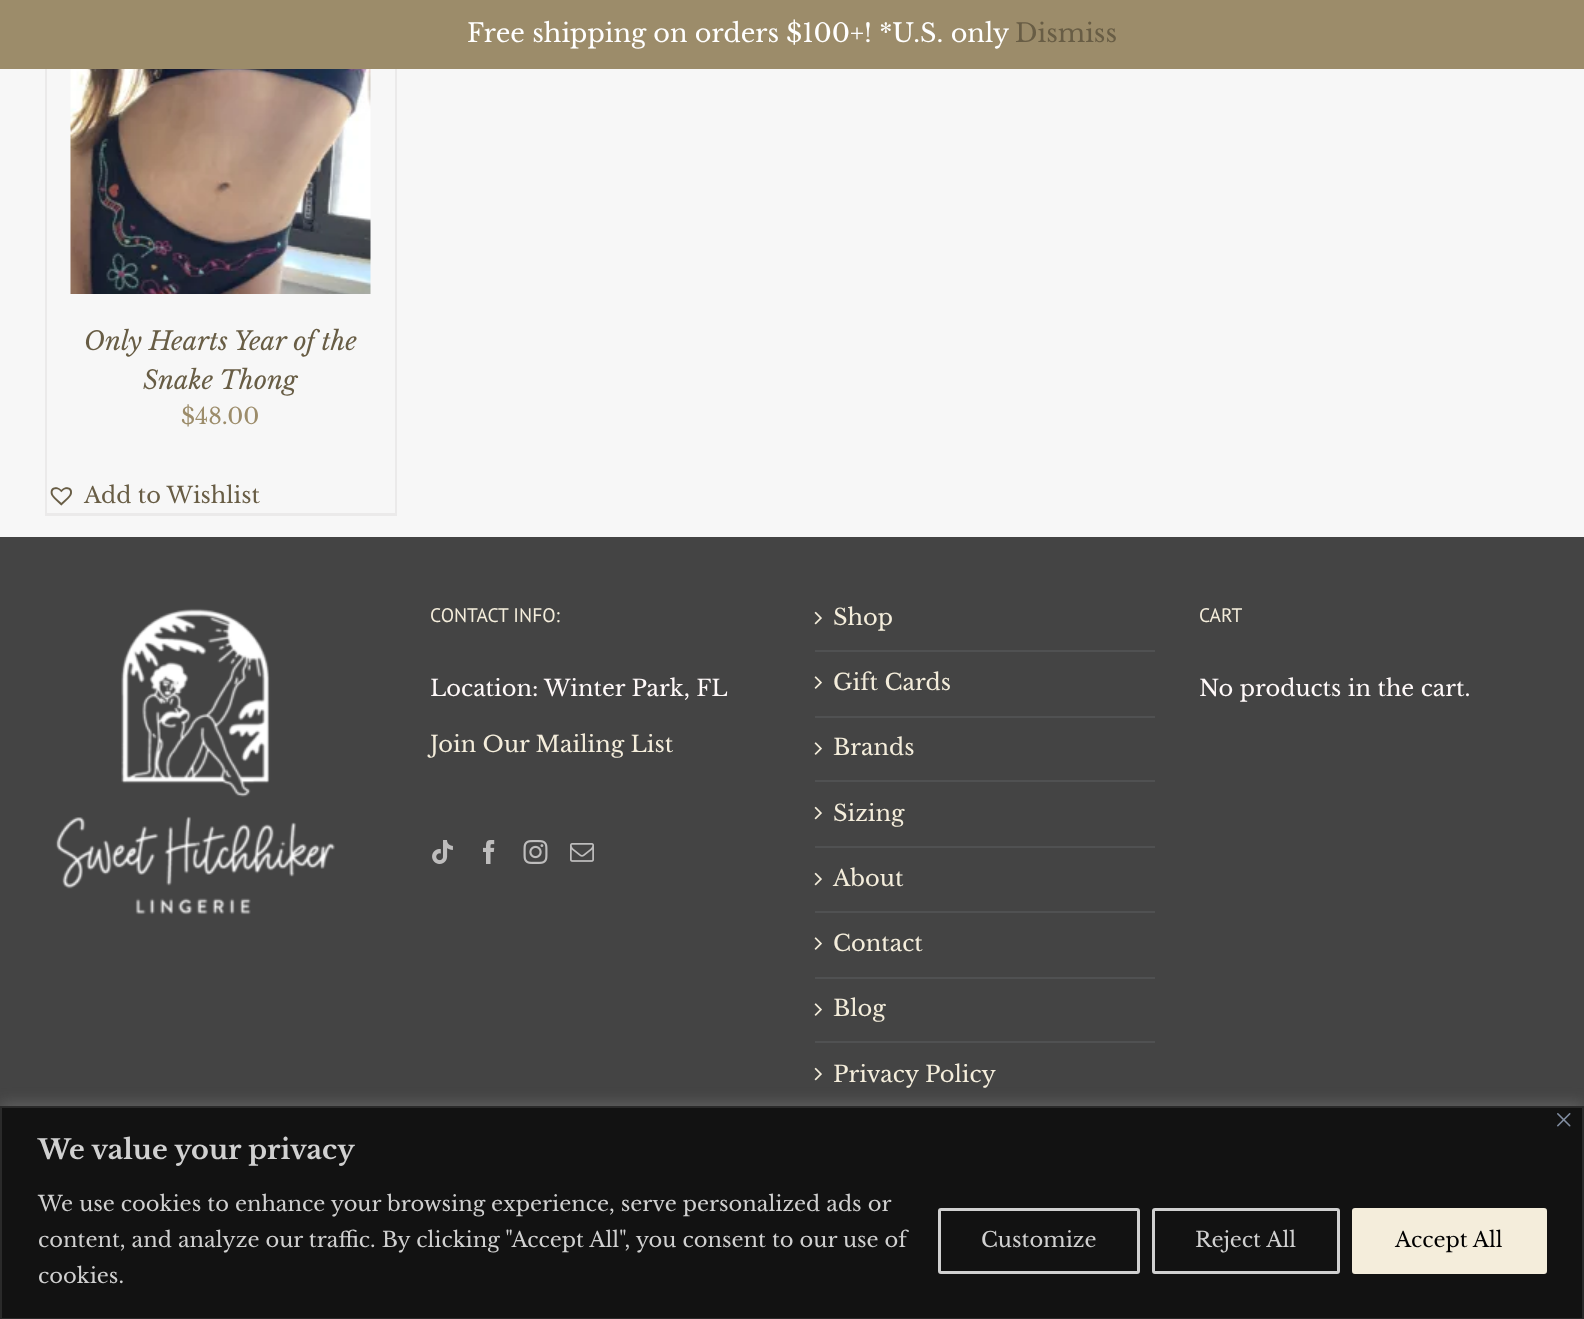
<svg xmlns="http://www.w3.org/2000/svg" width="1584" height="1319">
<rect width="100%" height="100%" fill="#f7f7f7"/>
<rect width="1584" height="69" fill="#9c8c6a"/>
<text x="467" y="42" style="font-family:Libre Baskerville;font-size:25.5px;fill:#fff">Free shipping on orders $100+! *U.S. only</text>
<text x="1015" y="42" style="font-family:Libre Baskerville;font-size:25.5px;fill:#685d45">Dismiss</text>
<rect x="395" y="69" width="2" height="447" fill="#ebeaea"/>
<rect x="45" y="513" width="351" height="3" fill="#ebeaea"/>
<rect x="45" y="69" width="2" height="447" fill="#ebeaea"/>
<image x="70" y="69" width="301" height="225" href="media/1.png"/>
<text x="84" y="350" style="font-family:Libre Baskerville;font-size:25.5px;font-style:italic;fill:#685d45">Only Hearts Year of the</text>
<text x="143" y="389" style="font-family:Libre Baskerville;font-size:25.5px;font-style:italic;fill:#685d45">Snake Thong</text>
<text x="181" y="424" style="font-family:Libre Baskerville;font-size:22.5px;fill:#9c8c6a">$48.00</text>
<image x="50" y="487" width="22" height="19" href="media/2.png"/>
<text x="84" y="503" style="font-family:Libre Baskerville;font-size:22.5px;fill:#685d45">Add to Wishlist</text>
<rect y="537" width="1584" height="569" fill="#444"/>
<image x="55" y="608" width="280" height="307" href="media/3.png"/>
<text x="430" y="622" style="font-family:PT Sans;font-size:19.5px;fill:#f4eddb">CONTACT INFO:</text>
<text x="430" y="696" style="font-family:Libre Baskerville;font-size:22.5px;fill:#fff9f9">Location: Winter Park, FL</text>
<text x="430" y="752" style="font-family:Libre Baskerville;font-size:22.5px;fill:#f4eddb">Join Our Mailing List</text>
<image x="432" y="840" width="21" height="24" href="media/4.png"/>
<image x="483" y="840" width="12" height="24" href="media/5.png"/>
<image x="523" y="840" width="25" height="24" href="media/6.png"/>
<image x="570" y="843" width="24" height="19" href="media/7.png"/>
<rect x="815" y="650" width="340" height="2" fill="#505152"/>
<image x="814" y="611" width="8" height="14" href="media/8.png"/>
<text x="833" y="625" style="font-family:Libre Baskerville;font-size:22.5px;fill:#f4eddb">Shop</text>
<rect x="815" y="716" width="340" height="2" fill="#505152"/>
<image x="814" y="676" width="8" height="13" href="media/9.png"/>
<text x="833" y="690" style="font-family:Libre Baskerville;font-size:22.5px;fill:#f4eddb">Gift Cards</text>
<rect x="815" y="780" width="340" height="2" fill="#505152"/>
<image x="814" y="742" width="8" height="13" href="media/9.png"/>
<text x="833" y="755" style="font-family:Libre Baskerville;font-size:22.5px;fill:#f4eddb">Brands</text>
<rect x="815" y="846" width="340" height="2" fill="#505152"/>
<image x="814" y="806" width="8" height="14" href="media/8.png"/>
<text x="833" y="821" style="font-family:Libre Baskerville;font-size:22.5px;fill:#f4eddb">Sizing</text>
<rect x="815" y="911" width="340" height="2" fill="#505152"/>
<image x="814" y="872" width="8" height="14" href="media/8.png"/>
<text x="833" y="886" style="font-family:Libre Baskerville;font-size:22.5px;fill:#f4eddb">About</text>
<rect x="815" y="977" width="340" height="2" fill="#505152"/>
<image x="814" y="937" width="8" height="13" href="media/9.png"/>
<text x="833" y="951" style="font-family:Libre Baskerville;font-size:22.5px;fill:#f4eddb">Contact</text>
<rect x="815" y="1041" width="340" height="2" fill="#505152"/>
<image x="814" y="1003" width="8" height="13" href="media/9.png"/>
<text x="833" y="1016" style="font-family:Libre Baskerville;font-size:22.5px;fill:#f4eddb">Blog</text>
<image x="814" y="1067" width="8" height="14" href="media/8.png"/>
<text x="833" y="1082" style="font-family:Libre Baskerville;font-size:22.5px;fill:#f4eddb">Privacy Policy</text>
<text x="1199" y="622" style="font-family:PT Sans;font-size:19.5px;fill:#f4eddb">CART</text>
<text x="1199" y="696" style="font-family:Libre Baskerville;font-size:22.5px;fill:#fff9f9">No products in the cart.</text>
<rect y="1104" width="1584" height="215" fill="#acabab4d" filter="blur(7.5px)"/>
<rect x="1" y="1107" width="1582" height="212" fill="#121212" stroke="#2a2a2a" stroke-width="2"/>
<image x="1557" y="1113" width="14" height="14" href="media/10.png"/>
<text x="38" y="1159" style="font-family:Libre Baskerville;font-size:27px;font-weight:bold;fill:#d0d0d0">We value your privacy</text>
<text x="38" y="1211" style="font-family:Libre Baskerville;font-size:21px;fill:#d0d0d0">We use cookies to enhance your browsing experience, serve personalized ads or</text>
<text x="38" y="1247" style="font-family:Libre Baskerville;font-size:21px;fill:#d0d0d0">content, and analyze our traffic. By clicking "Accept All", you consent to our use of</text>
<text x="38" y="1283" style="font-family:Libre Baskerville;font-size:21px;fill:#d0d0d0">cookies.</text>
<rect x="939.5" y="1209.5" width="199" height="63" rx="1.5" fill="none" stroke="#d0d0d0" stroke-width="3"/>
<text x="981" y="1247" style="font-family:Libre Baskerville;font-size:21px;fill:#d0d0d0">Customize</text>
<rect x="1153.5" y="1209.5" width="185" height="63" rx="1.5" fill="none" stroke="#d0d0d0" stroke-width="3"/>
<text x="1195" y="1247" style="font-family:Libre Baskerville;font-size:21px;fill:#d0d0d0">Reject All</text>
<rect x="1353.5" y="1209.5" width="192" height="63" rx="1.5" fill="#f4eddb" stroke="#f4eddb" stroke-width="3"/>
<text x="1395" y="1247" style="font-family:Libre Baskerville;font-size:21px;fill:#000">Accept All</text>
</svg>
